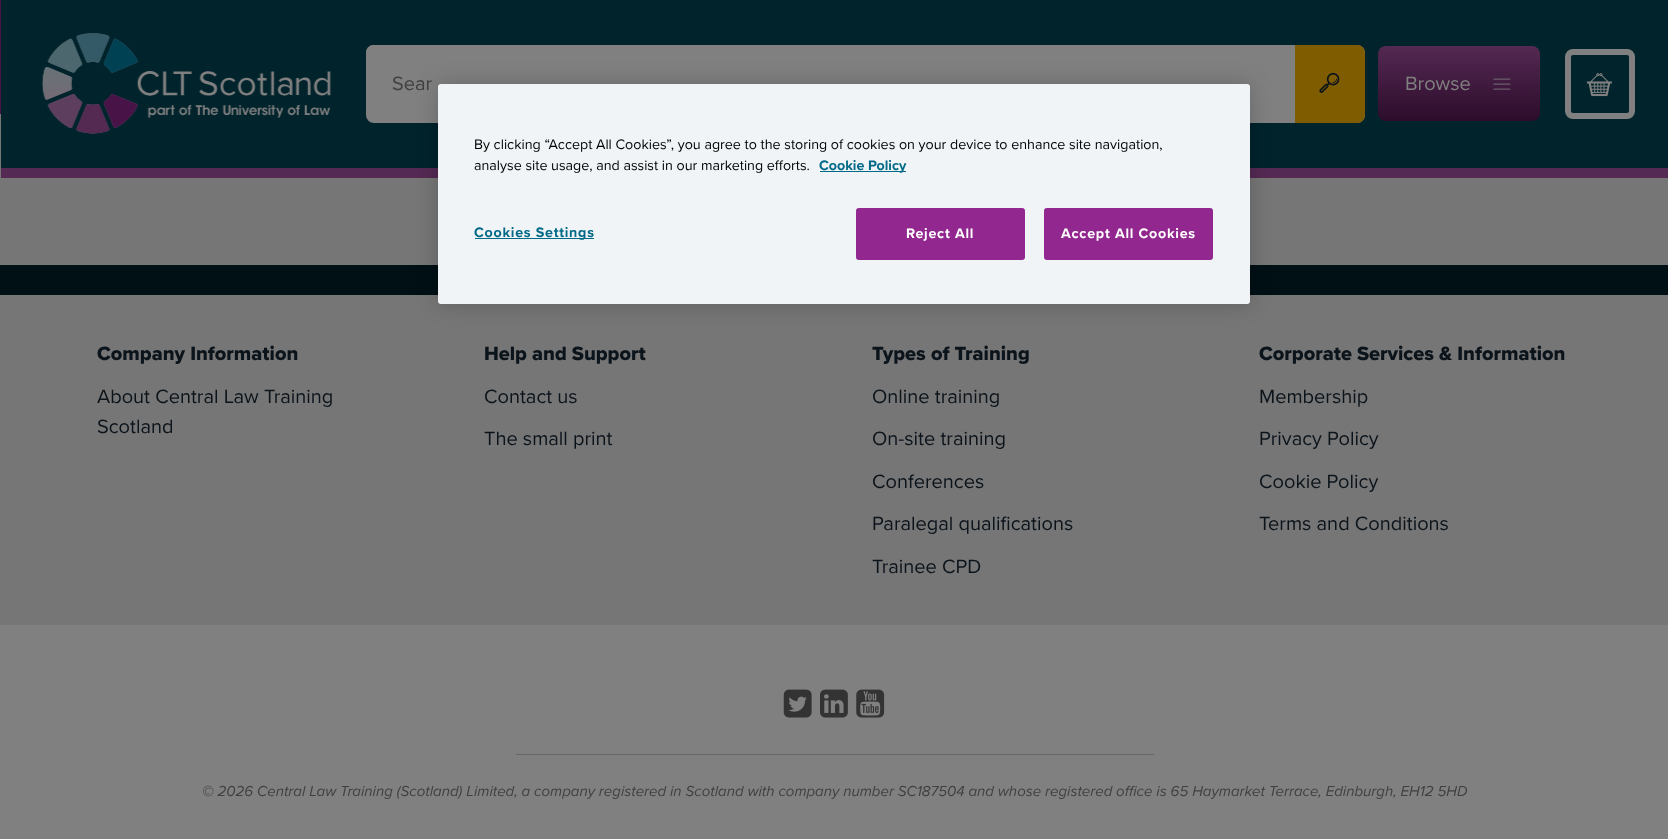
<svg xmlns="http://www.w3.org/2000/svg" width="1668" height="839">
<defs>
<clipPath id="clip1"><rect width="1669" height="114"/></clipPath>
<linearGradient id="g1" gradientUnits="userSpaceOnUse" x1="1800" y1="-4.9" x2="67" y2="-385"><stop offset="0" stop-color="#241224"/><stop offset="1" stop-color="#491448"/></linearGradient>
<linearGradient id="g2" gradientUnits="userSpaceOnUse" x1="1458" y1="46" x2="1458" y2="121"><stop offset="0" stop-color="#542953"/><stop offset="1" stop-color="#2c0c2b"/></linearGradient>
</defs>
<rect width="100%" height="100%" fill="#001015"/>
<g clip-path="url(#clip1)">
<path d="M0-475h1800v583l-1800 206z" fill="url(#g1)" fill-rule="evenodd"/>
</g>
<rect y="114" width="1668" height="151" fill="#767676"/>
<rect x="1" width="1667" height="168" fill="#00232c"/>
<image x="41" y="33" width="290" height="101" href="media/1.png"/>
<rect x="366" y="45" width="999" height="78" rx="8" fill="#808080"/>
<path d="M374 45h921v69h-929v-61c0-4.5 3.5-8 8-8z" fill="#808080"/>
<text x="392" y="90" style="font-family:Proxima Nova;font-size:20px;fill:#404040">Sear</text>
<path d="M1295 45h62c4.5 0 8 3.5 8 8v62c0 4.5-3.5 8-8 8h-62z" fill="#805c00"/>
<image x="1319" y="72" width="21" height="21" href="media/2.png"/>
<rect x="1378" y="46" width="162" height="75" rx="8" fill="url(#g2)"/>
<text x="1405" y="90" style="font-family:Proxima Nova;font-size:20px;fill:#808080">Browse</text>
<image x="1493" y="78" width="18" height="12" href="media/3.png"/>
<rect x="1568" y="52" width="64" height="64" rx="5" fill="none" stroke="#808080" stroke-width="6"/>
<image x="1586" y="73" width="26" height="24" href="media/4.png"/>
<rect x="1" y="168" width="1667" height="10" fill="#542953"/>
<rect y="625" width="1668" height="214" fill="#808080"/>
<rect y="295" width="1668" height="330" fill="#767676"/>
<text x="97" y="360" style="font-family:Proxima Nova;font-size:20px;font-weight:800;fill:#0c141b">Company Information</text>
<text x="97" y="403" style="font-family:Proxima Nova;font-size:20px;fill:#0c141b">About Central Law Training</text>
<text x="97" y="433" style="font-family:Proxima Nova;font-size:20px;fill:#0c141b">Scotland</text>
<text x="484" y="360" style="font-family:Proxima Nova;font-size:20px;font-weight:800;fill:#0c141b">Help and Support</text>
<text x="484" y="403" style="font-family:Proxima Nova;font-size:20px;fill:#0c141b">Contact us</text>
<text x="484" y="445" style="font-family:Proxima Nova;font-size:20px;fill:#0c141b">The small print</text>
<text x="872" y="360" style="font-family:Proxima Nova;font-size:20px;font-weight:800;fill:#0c141b">Types of Training</text>
<text x="872" y="403" style="font-family:Proxima Nova;font-size:20px;fill:#0c141b">Online training</text>
<text x="872" y="445" style="font-family:Proxima Nova;font-size:20px;fill:#0c141b">On-site training</text>
<text x="872" y="488" style="font-family:Proxima Nova;font-size:20px;fill:#0c141b">Conferences</text>
<text x="872" y="530" style="font-family:Proxima Nova;font-size:20px;fill:#0c141b">Paralegal qualifications</text>
<text x="872" y="573" style="font-family:Proxima Nova;font-size:20px;fill:#0c141b">Trainee CPD</text>
<text x="1259" y="360" style="font-family:Proxima Nova;font-size:20px;font-weight:800;fill:#0c141b">Corporate Services &amp; Information</text>
<text x="1259" y="403" style="font-family:Proxima Nova;font-size:20px;fill:#0c141b">Membership</text>
<text x="1259" y="445" style="font-family:Proxima Nova;font-size:20px;fill:#0c141b">Privacy Policy</text>
<text x="1259" y="488" style="font-family:Proxima Nova;font-size:20px;fill:#0c141b">Cookie Policy</text>
<text x="1259" y="530" style="font-family:Proxima Nova;font-size:20px;fill:#0c141b">Terms and Conditions</text>
<image x="783" y="689" width="29" height="29" href="media/5.png"/>
<image x="820" y="689" width="28" height="29" href="media/6.png"/>
<image x="856" y="689" width="29" height="29" href="media/7.png"/>
<rect x="516" y="754" width="638" height="1" fill="#666"/>
<text x="202" y="796" style="font-family:Proxima Nova;font-size:15px;font-style:italic;fill:#404040">© 2026 Central Law Training (Scotland) Limited, a company registered in Scotland with company number SC187504 and whose registered office is 65 Haymarket Terrace, Edinburgh, EH12 5HD</text>
<rect x="438" y="84" width="812" height="220" rx="3" fill="#00000033" filter="blur(11px)"/>
<rect x="438" y="84" width="812" height="220" rx="3" fill="#f0f4f7"/>
<text x="474" y="149" style="font-family:Proxima Nova;font-size:14.25px;fill:#000">By clicking “Accept All Cookies”, you agree to the storing of cookies on your device to enhance site navigation,</text>
<text x="474" y="170" style="font-family:Proxima Nova;font-size:14.25px;fill:#000">analyse site usage, and assist in our marketing efforts.</text>
<rect x="820" y="171" width="86" height="1" fill="#006987"/>
<text x="819" y="170" style="font-family:Proxima Nova;font-size:14.25px;font-weight:bold;fill:#006987">Cookie Policy</text>
<rect x="475" y="238" width="119" height="1" fill="#006987"/>
<text x="474" y="237" style="font-family:Proxima Nova;font-size:14.25px;font-weight:bold;letter-spacing:0.75px;fill:#006987">Cookies Settings</text>
<rect x="856.5" y="208.5" width="168" height="51" rx="2" fill="#91278f" stroke="#91278f"/>
<text x="906" y="238" style="font-family:Proxima Nova;font-size:14.25px;font-weight:bold;letter-spacing:0.75px;fill:#fff">Reject All</text>
<rect x="1044.5" y="208.5" width="168" height="51" rx="2" fill="#91278f" stroke="#91278f"/>
<text x="1061" y="238" style="font-family:Proxima Nova;font-size:14.25px;font-weight:bold;letter-spacing:0.75px;fill:#fff">Accept All Cookies</text>
</svg>
